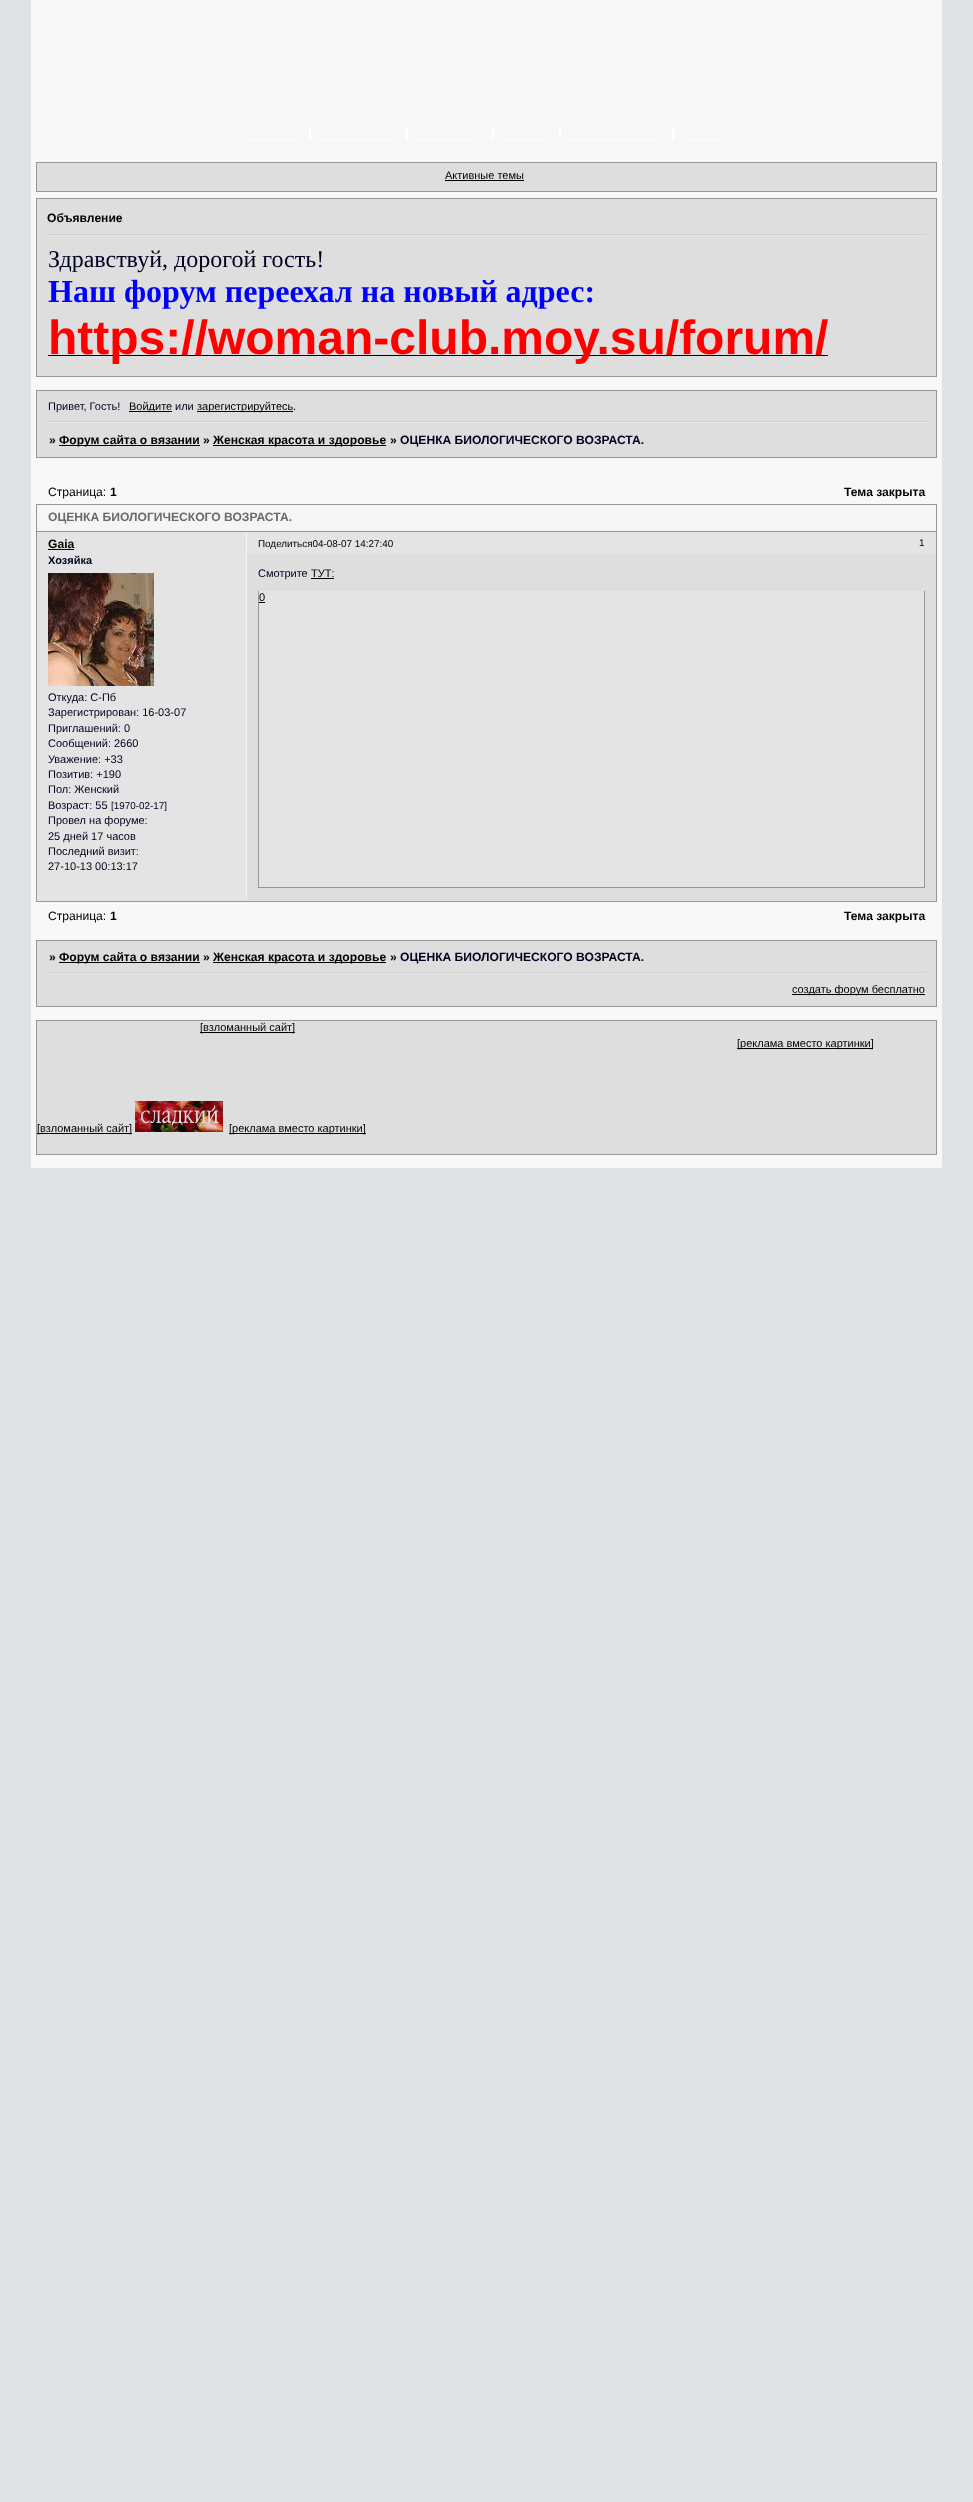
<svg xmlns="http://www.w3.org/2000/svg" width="973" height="2502">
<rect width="100%" height="100%" fill="#dce2e6"/>
<rect x="31" width="911" height="1168" fill="#f8f8f8"/>
<rect x="247" y="139" width="48" height="1" fill="#fff"/>
<rect x="309" y="128" width="2" height="12" fill="#fff"/>
<rect x="319" y="139" width="74" height="1" fill="#fff"/>
<rect x="406" y="128" width="2" height="12" fill="#fff"/>
<rect x="416" y="139" width="62" height="1" fill="#fff"/>
<rect x="492" y="128" width="2" height="12" fill="#fff"/>
<rect x="502" y="139" width="43" height="1" fill="#fff"/>
<rect x="559" y="128" width="2" height="12" fill="#fff"/>
<rect x="569" y="139" width="89" height="1" fill="#fff"/>
<rect x="672" y="128" width="2" height="12" fill="#fff"/>
<rect x="682" y="139" width="44" height="1" fill="#fff"/>
<rect x="36.5" y="162.5" width="900" height="29" fill="#dededf" stroke="#969696"/>
<text x="445" y="179" style="font-family:Liberation Sans;font-size:11px;fill:#000">Активные темы</text>
<rect x="445" y="180" width="79" height="1" fill="#000"/>
<rect x="36.5" y="198.5" width="900" height="178" fill="#dededf" stroke="#969696"/>
<rect x="47" y="235" width="879" height="1" fill="#e8e8eb"/>
<rect x="47" y="234" width="879" height="1" fill="#cfcfd1"/>
<text x="47" y="222" style="font-family:Liberation Sans;font-size:12.1px;font-weight:bold;fill:#000">Объявление</text>
<text x="48" y="267" style="font-family:Liberation Serif;font-size:24px;fill:#000020">Здравствуй, дорогой гость!</text>
<text x="48" y="302" style="font-family:Liberation Serif;font-size:32px;font-weight:bold;fill:#00f">Наш форум переехал на новый адрес:</text>
<rect x="48" y="355" width="780" height="1" fill="#000"/>
<text x="48" y="354" style="font-family:Liberation Sans;font-size:48px;font-weight:bold;fill:#f00">https://woman-club.moy.su/forum/</text>
<rect x="37" y="391" width="899" height="66" fill="#dededf"/>
<rect x="36" y="390" width="901" height="1" fill="#969696"/>
<rect x="936" y="390" width="1" height="68" fill="#969696"/>
<rect x="36" y="390" width="1" height="33" fill="#969696"/>
<text x="48" y="410" style="font-family:Liberation Sans;font-size:11px;fill:#000020">Привет, Гость!</text>
<rect x="129" y="411" width="43" height="1" fill="#000"/>
<text x="129" y="410" style="font-family:Liberation Sans;font-size:11px;fill:#000">Войдите</text>
<text x="175" y="410" style="font-family:Liberation Sans;font-size:11px;fill:#000020">или</text>
<rect x="197" y="411" width="96" height="1" fill="#000"/>
<text x="197" y="410" style="font-family:Liberation Sans;font-size:11px;fill:#000">зарегистрируйтесь</text>
<text x="293" y="410" style="font-family:Liberation Sans;font-size:11px;fill:#000020">.</text>
<rect x="47" y="421" width="879" height="1" fill="#cfcfd1"/>
<rect x="47" y="422" width="879" height="1" fill="#e8e8eb"/>
<rect x="36" y="457" width="901" height="1" fill="#969696"/>
<rect x="36" y="421" width="1" height="37" fill="#969696"/>
<text x="49" y="444" style="font-family:Liberation Sans;font-size:12.1px;font-weight:bold;fill:#000020">»</text>
<rect x="59" y="445" width="141" height="1" fill="#000"/>
<text x="59" y="444" style="font-family:Liberation Sans;font-size:12.1px;font-weight:bold;fill:#000">Форум сайта о вязании</text>
<text x="203" y="444" style="font-family:Liberation Sans;font-size:12.1px;font-weight:bold;fill:#000020">»</text>
<rect x="213" y="445" width="173" height="1" fill="#000"/>
<text x="213" y="444" style="font-family:Liberation Sans;font-size:12.1px;font-weight:bold;fill:#000">Женская красота и здоровье</text>
<text x="390" y="444" style="font-family:Liberation Sans;font-size:12.1px;font-weight:bold;fill:#000020">» ОЦЕНКА БИОЛОГИЧЕСКОГО ВОЗРАСТА.</text>
<text x="48" y="496" style="font-family:Liberation Sans;font-size:12.1px;fill:#000">Страница:</text>
<text x="110" y="496" style="font-family:Liberation Sans;font-size:12.1px;font-weight:bold;fill:#000">1</text>
<text x="844" y="496" style="font-family:Liberation Sans;font-size:12.1px;font-weight:bold;fill:#000">Тема закрыта</text>
<rect x="37" y="505" width="899" height="26" fill="#f5f5f5"/>
<rect x="36" y="504" width="901" height="1" fill="#969696"/>
<rect x="936" y="504" width="1" height="27" fill="#969696"/>
<rect x="36" y="504" width="1" height="27" fill="#969696"/>
<text x="48" y="521" style="font-family:Liberation Sans;font-size:12.1px;font-weight:bold;fill:#6a6a6a">ОЦЕНКА БИОЛОГИЧЕСКОГО ВОЗРАСТА.</text>
<rect x="37" y="532" width="899" height="22" fill="#e4e4e4"/>
<rect x="246" y="532" width="1" height="23" fill="#f3f3f3"/>
<rect x="37" y="554" width="899" height="347" fill="#e4e4e4"/>
<rect x="36" y="531" width="901" height="1" fill="#969696"/>
<rect x="936" y="531" width="1" height="371" fill="#969696"/>
<rect x="36" y="901" width="901" height="1" fill="#969696"/>
<rect x="36" y="531" width="1" height="24" fill="#969696"/>
<rect x="36" y="554" width="1" height="348" fill="#969696"/>
<text x="48" y="548" style="font-family:Liberation Sans;font-size:12.1px;font-weight:bold;fill:#000">Gaia</text>
<rect x="48" y="549" width="26" height="1" fill="#000"/>
<text x="48" y="564" style="font-family:Liberation Sans;font-size:11px;font-weight:bold;fill:#000020">Хозяйка</text>
<image x="48" y="573" width="106" height="113" href="media/1.png"/>
<text x="48" y="701" style="font-family:Liberation Sans;font-size:11px;fill:#000020">Откуда: С-Пб</text>
<text x="48" y="716" style="font-family:Liberation Sans;font-size:11px;fill:#000020">Зарегистрирован: 16-03-07</text>
<text x="48" y="732" style="font-family:Liberation Sans;font-size:11px;fill:#000020">Приглашений: 0</text>
<text x="48" y="747" style="font-family:Liberation Sans;font-size:11px;fill:#000020">Сообщений: 2660</text>
<text x="48" y="763" style="font-family:Liberation Sans;font-size:11px;fill:#000020">Уважение: +33</text>
<text x="48" y="778" style="font-family:Liberation Sans;font-size:11px;fill:#000020">Позитив: +190</text>
<text x="48" y="793" style="font-family:Liberation Sans;font-size:11px;fill:#000020">Пол: Женский</text>
<text x="48" y="809" style="font-family:Liberation Sans;font-size:11px;fill:#000020">Возраст: 55</text>
<text x="111" y="809" style="font-family:Liberation Sans;font-size:9.9px;fill:#000020">[1970-02-17]</text>
<text x="48" y="824" style="font-family:Liberation Sans;font-size:11px;fill:#000020">Провел на форуме:</text>
<text x="48" y="840" style="font-family:Liberation Sans;font-size:11px;fill:#000020">25 дней 17 часов</text>
<text x="48" y="855" style="font-family:Liberation Sans;font-size:11px;fill:#000020">Последний визит:</text>
<text x="48" y="870" style="font-family:Liberation Sans;font-size:11px;fill:#000020">27-10-13 00:13:17</text>
<rect x="247" y="554" width="689" height="346" fill="#dededf"/>
<rect x="246" y="554" width="1" height="346" fill="#f3f3f3"/>
<text x="258" y="577" style="font-family:Liberation Sans;font-size:11px;fill:#000020">Смотрите</text>
<text x="311" y="577" style="font-family:Liberation Sans;font-size:11px;fill:#000">ТУТ:</text>
<rect x="311" y="578" width="23" height="1" fill="#000"/>
<rect x="259" y="591" width="665" height="296" fill="#e4e4e4"/>
<rect x="924" y="591" width="1" height="297" fill="#969696"/>
<rect x="258" y="887" width="667" height="1" fill="#969696"/>
<rect x="258" y="591" width="1" height="297" fill="#969696"/>
<text x="259" y="601" style="font-family:Liberation Sans;font-size:11px;fill:#000">0</text>
<rect x="259" y="602" width="6" height="1" fill="#000"/>
<text x="258" y="547" style="font-family:Liberation Sans;font-size:9.9px;fill:#000">Поделиться04-08-07 14:27:40</text>
<text x="919" y="546" style="font-family:Liberation Sans;font-size:9.9px;fill:#000020">1</text>
<text x="48" y="920" style="font-family:Liberation Sans;font-size:12.1px;fill:#000">Страница:</text>
<text x="110" y="920" style="font-family:Liberation Sans;font-size:12.1px;font-weight:bold;fill:#000">1</text>
<text x="844" y="920" style="font-family:Liberation Sans;font-size:12.1px;font-weight:bold;fill:#000">Тема закрыта</text>
<rect x="36" y="940" width="901" height="1" fill="#969696"/>
<rect x="936" y="972" width="1" height="35" fill="#969696"/>
<rect x="936" y="940" width="1" height="34" fill="#969696"/>
<rect x="36" y="1006" width="901" height="1" fill="#969696"/>
<rect x="36" y="972" width="1" height="35" fill="#969696"/>
<rect x="36" y="940" width="1" height="34" fill="#969696"/>
<rect x="37" y="941" width="899" height="65" fill="#dededf"/>
<text x="49" y="961" style="font-family:Liberation Sans;font-size:12.1px;font-weight:bold;fill:#000020">»</text>
<rect x="59" y="962" width="141" height="1" fill="#000"/>
<text x="59" y="961" style="font-family:Liberation Sans;font-size:12.1px;font-weight:bold;fill:#000">Форум сайта о вязании</text>
<text x="203" y="961" style="font-family:Liberation Sans;font-size:12.1px;font-weight:bold;fill:#000020">»</text>
<rect x="213" y="962" width="173" height="1" fill="#000"/>
<text x="213" y="961" style="font-family:Liberation Sans;font-size:12.1px;font-weight:bold;fill:#000">Женская красота и здоровье</text>
<text x="390" y="961" style="font-family:Liberation Sans;font-size:12.1px;font-weight:bold;fill:#000020">» ОЦЕНКА БИОЛОГИЧЕСКОГО ВОЗРАСТА.</text>
<rect x="47" y="972" width="879" height="1" fill="#cfcfd1"/>
<rect x="47" y="973" width="879" height="1" fill="#e8e8eb"/>
<rect x="792" y="994" width="133" height="1" fill="#000"/>
<text x="792" y="993" style="font-family:Liberation Sans;font-size:11px;fill:#000">создать форум бесплатно</text>
<rect x="36.5" y="1020.5" width="900" height="134" fill="#dededf" stroke="#969696"/>
<rect x="200" y="1032" width="95" height="1" fill="#000"/>
<text x="200" y="1031" style="font-family:Liberation Sans;font-size:11px;fill:#000">[взломанный сайт]</text>
<rect x="737" y="1048" width="136" height="1" fill="#000"/>
<text x="737" y="1047" style="font-family:Liberation Sans;font-size:11px;fill:#000">[реклама вместо картинки]</text>
<rect x="37" y="1133" width="95" height="1" fill="#000"/>
<text x="37" y="1132" style="font-family:Liberation Sans;font-size:11px;fill:#000">[взломанный сайт]</text>
<image x="135" y="1101" width="88" height="31" href="media/2.png"/>
<rect x="229" y="1133" width="137" height="1" fill="#000"/>
<text x="229" y="1132" style="font-family:Liberation Sans;font-size:11px;fill:#000">[реклама вместо картинки]</text>
</svg>
